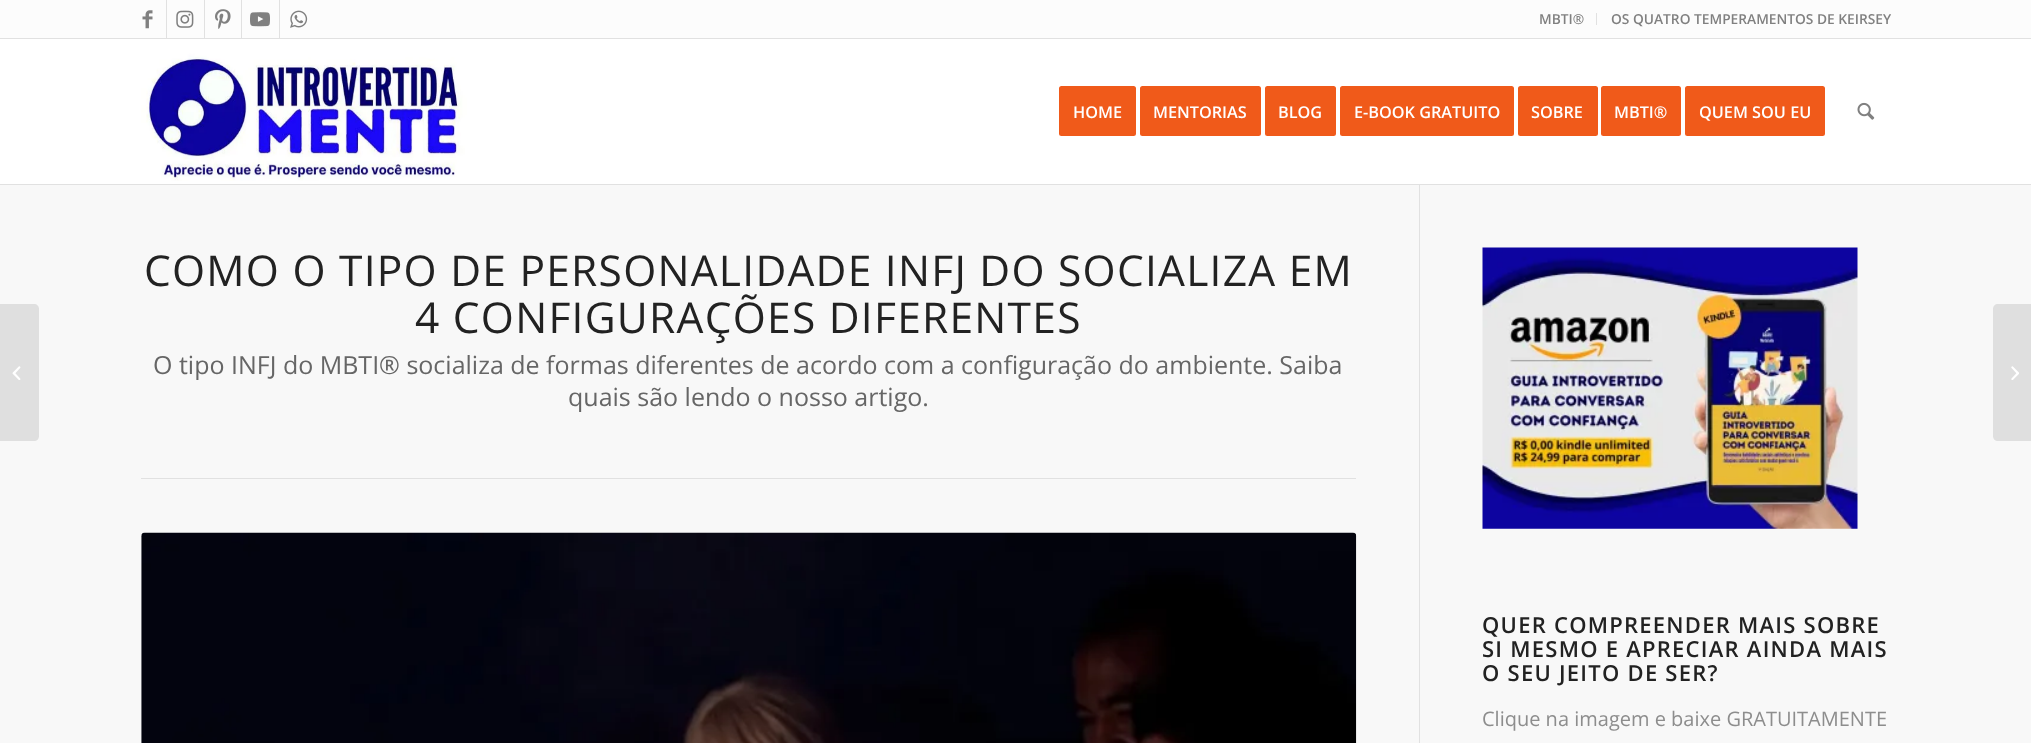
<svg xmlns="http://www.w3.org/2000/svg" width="2031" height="743">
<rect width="100%" height="100%" fill="#fff"/>
<rect width="2031" height="38" fill="#fcfcfc"/>
<rect y="38" width="2031" height="1" fill="#e1e1e1"/>
<rect x="166" width="1" height="38" fill="#e1e1e1"/>
<image x="142" y="10" width="11" height="19" href="media/1.png"/>
<rect x="204" width="1" height="38" fill="#e1e1e1"/>
<image x="176" y="10" width="18" height="18" href="media/2.png"/>
<rect x="241" width="1" height="38" fill="#e1e1e1"/>
<image x="215" y="9" width="16" height="20" href="media/3.png"/>
<rect x="279" width="1" height="38" fill="#e1e1e1"/>
<image x="250" y="12" width="20" height="15" href="media/4.png"/>
<image x="290" y="10" width="18" height="18" href="media/5.png"/>
<rect x="1596" y="13" width="1" height="12" fill="#e1e1e1"/>
<text x="1539" y="24" style="font-family:Open Sans;font-size:13.75px;font-weight:600;fill:#808080">MBTI®</text>
<text x="1611" y="24" style="font-family:Open Sans;font-size:13.75px;font-weight:600;fill:#808080">OS QUATRO TEMPERAMENTOS DE KEIRSEY</text>
<rect y="184" width="2031" height="1" fill="#e1e1e1"/>
<image x="141" y="39" width="326" height="142" href="media/6.png"/>
<rect x="1060.5" y="87.5" width="74" height="47" rx="1" fill="#f05a1a" stroke="#f05a1a" stroke-width="3"/>
<text x="1073" y="118" style="font-family:Open Sans;font-size:16.25px;font-weight:600;fill:#fff">HOME</text>
<rect x="1141.5" y="87.5" width="118" height="47" rx="1" fill="#f05a1a" stroke="#f05a1a" stroke-width="3"/>
<text x="1153" y="118" style="font-family:Open Sans;font-size:16.25px;font-weight:600;fill:#fff">MENTORIAS</text>
<rect x="1266.5" y="87.5" width="68" height="47" rx="1" fill="#f05a1a" stroke="#f05a1a" stroke-width="3"/>
<text x="1278" y="118" style="font-family:Open Sans;font-size:16.25px;font-weight:600;fill:#fff">BLOG</text>
<rect x="1341.5" y="87.5" width="171" height="47" rx="1" fill="#f05a1a" stroke="#f05a1a" stroke-width="3"/>
<text x="1354" y="118" style="font-family:Open Sans;font-size:16.25px;font-weight:600;fill:#fff">E-BOOK GRATUITO</text>
<rect x="1519.5" y="87.5" width="77" height="47" rx="1" fill="#f05a1a" stroke="#f05a1a" stroke-width="3"/>
<text x="1531" y="118" style="font-family:Open Sans;font-size:16.25px;font-weight:600;fill:#fff">SOBRE</text>
<rect x="1602.5" y="87.5" width="77" height="47" rx="1" fill="#f05a1a" stroke="#f05a1a" stroke-width="3"/>
<text x="1614" y="118" style="font-family:Open Sans;font-size:16.25px;font-weight:600;fill:#fff">MBTI®</text>
<rect x="1686.5" y="87.5" width="137" height="47" rx="1" fill="#f05a1a" stroke="#f05a1a" stroke-width="3"/>
<text x="1699" y="118" style="font-family:Open Sans;font-size:16.25px;font-weight:600;fill:#fff">QUEM SOU EU</text>
<image x="1857" y="102" width="18" height="18" href="media/7.png"/>
<rect y="185" width="2031" height="558" fill="#f8f8f8"/>
<path d="M0 304h34c3 0 5 2 5 5v127c0 3-2 5-5 5h-34z" fill="#dfdfdf"/>
<image x="12" y="366" width="9" height="14" href="media/8.png"/>
<rect x="1419" y="185" width="1" height="558" fill="#e1e1e1"/>
<text x="144" y="286" style="font-family:Open Sans;font-size:42.5px;letter-spacing:1.25px;fill:#222">COMO O TIPO DE PERSONALIDADE INFJ DO SOCIALIZA EM</text>
<text x="415" y="333" style="font-family:Open Sans;font-size:42.5px;letter-spacing:1.25px;fill:#222">4 CONFIGURAÇÕES DIFERENTES</text>
<text x="153" y="374" style="font-family:Open Sans;font-size:25px;fill:#666">O tipo INFJ do MBTI® socializa de formas diferentes de acordo com a configuração do ambiente. Saiba</text>
<text x="568" y="406" style="font-family:Open Sans;font-size:25px;fill:#666">quais são lendo o nosso artigo.</text>
<rect x="141" y="478" width="1215" height="1" fill="#e1e1e1"/>
<image x="141" y="532" width="1216" height="211" href="media/9.png"/>
<image x="1482" y="247" width="376" height="282" href="media/10.png"/>
<text x="1482" y="633" style="font-family:Open Sans;font-size:22px;font-weight:600;letter-spacing:1.25px;fill:#222">QUER COMPREENDER MAIS SOBRE</text>
<text x="1482" y="657" style="font-family:Open Sans;font-size:22px;font-weight:600;letter-spacing:1.25px;fill:#222">SI MESMO E APRECIAR AINDA MAIS</text>
<text x="1482" y="681" style="font-family:Open Sans;font-size:22px;font-weight:600;letter-spacing:1.25px;fill:#222">O SEU JEITO DE SER?</text>
<text x="1482" y="726" style="font-family:Open Sans;font-size:20px;fill:#8d8d8d">Clique na imagem e baixe GRATUITAMENTE</text>
<path d="M1998 304h33v137h-33c-3 0-5-2-5-5v-127c0-3 2-5 5-5z" fill="#dfdfdf"/>
<image x="2011" y="366" width="8" height="14" href="media/11.png"/>
</svg>
